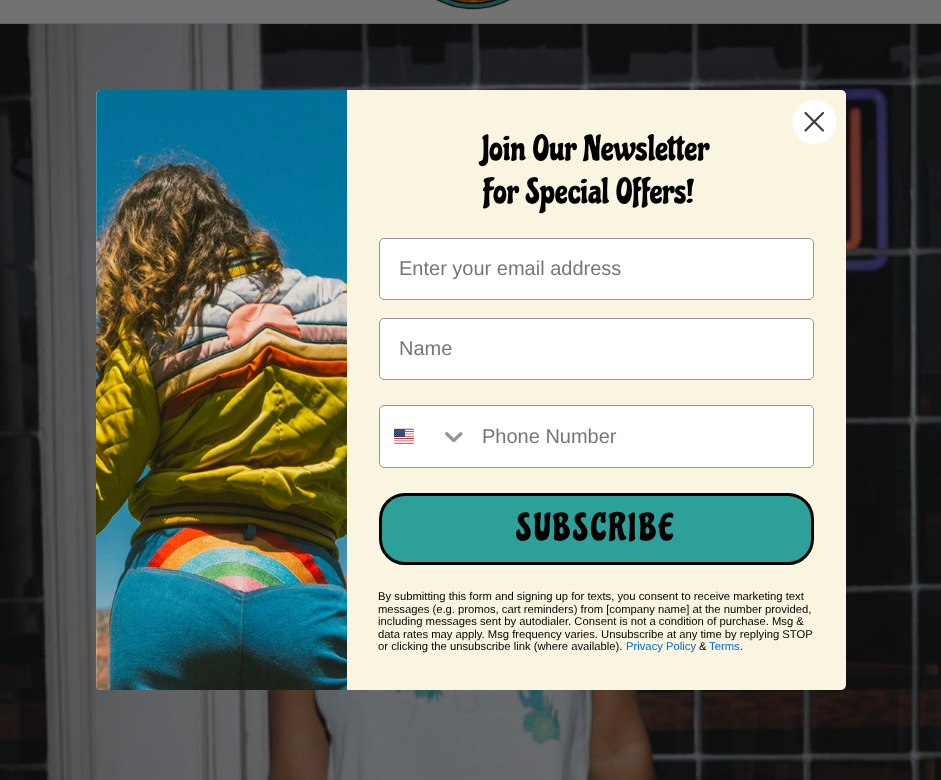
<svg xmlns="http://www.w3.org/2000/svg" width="941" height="780">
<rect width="100%" height="100%" fill="#727272"/>
<rect y="23" width="941" height="1" fill="#636361"/>
<image x="432" y="0" width="79" height="10" href="media/1.png"/>
<image x="0" y="24" width="941" height="756" href="media/2.png"/>
<rect x="96" y="90" width="750" height="600" rx="5" fill="#faf5e0"/>
<circle cx="814.5" cy="122" r="21" fill="#fff" stroke="#fff" stroke-width="2.2"/>
<path d="M805.5 113l17.5 17.5m-17.5 0l17.5-17.5z" fill="none" stroke="#373f47" stroke-width="2.2" stroke-linecap="round" stroke-linejoin="round"/>
<image x="96" y="90" width="251" height="600" href="media/3.png"/>
<text x="482" y="160" style="font-family:Chicle;font-size:35px;fill:#000">Join Our Newsletter</text>
<text x="483" y="203" style="font-family:Chicle;font-size:35px;fill:#000">For Special Offers!</text>
<rect x="379.5" y="238.5" width="434" height="61" rx="4.5" fill="#fff" stroke="#949596"/>
<text x="399" y="275" style="font-family:Liberation Sans;font-size:20px;fill:#767676">Enter your email address</text>
<rect x="379.5" y="318.5" width="434" height="61" rx="4.5" fill="#fff" stroke="#949596"/>
<text x="399" y="355" style="font-family:Liberation Sans;font-size:20px;fill:#767676">Name</text>
<rect x="379.5" y="405.5" width="434" height="62" rx="4.5" fill="#fff" stroke="#949596"/>
<image x="394" y="428" width="20" height="16" href="media/4.png"/>
<image x="445" y="432" width="18" height="11" href="media/5.png"/>
<text x="482" y="443" style="font-family:Liberation Sans;font-size:20px;fill:#767676">Phone Number</text>
<rect x="380.5" y="494.5" width="432" height="69" rx="24.5" fill="#2ea09a" stroke="#000" stroke-width="3"/>
<text x="516" y="540" style="font-family:Chicle;font-size:37.5px;letter-spacing:2.5px;fill:#070000">SUBSCRIBE</text>
<text x="378" y="600" style="font-family:Liberation Sans;font-size:11.25px;fill:#000">By submitting this form and signing up for texts, you consent to receive marketing text</text>
<text x="378" y="613" style="font-family:Liberation Sans;font-size:11.25px;fill:#000">messages (e.g. promos, cart reminders) from [company name] at the number provided,</text>
<text x="378" y="625" style="font-family:Liberation Sans;font-size:11.25px;fill:#000">including messages sent by autodialer. Consent is not a condition of purchase. Msg &amp;</text>
<text x="378" y="638" style="font-family:Liberation Sans;font-size:11.25px;fill:#000">data rates may apply. Msg frequency varies. Unsubscribe at any time by replying STOP</text>
<text x="378" y="650" style="font-family:Liberation Sans;font-size:11.25px;fill:#000">or clicking the unsubscribe link (where available).</text>
<text x="626" y="650" style="font-family:Liberation Sans;font-size:11.25px;fill:#06c">Privacy Policy</text>
<text x="699" y="650" style="font-family:Liberation Sans;font-size:11.25px;fill:#000">&amp;</text>
<text x="709" y="650" style="font-family:Liberation Sans;font-size:11.25px;fill:#06c">Terms</text>
<text x="740" y="650" style="font-family:Liberation Sans;font-size:11.25px;fill:#000">.</text>
</svg>
